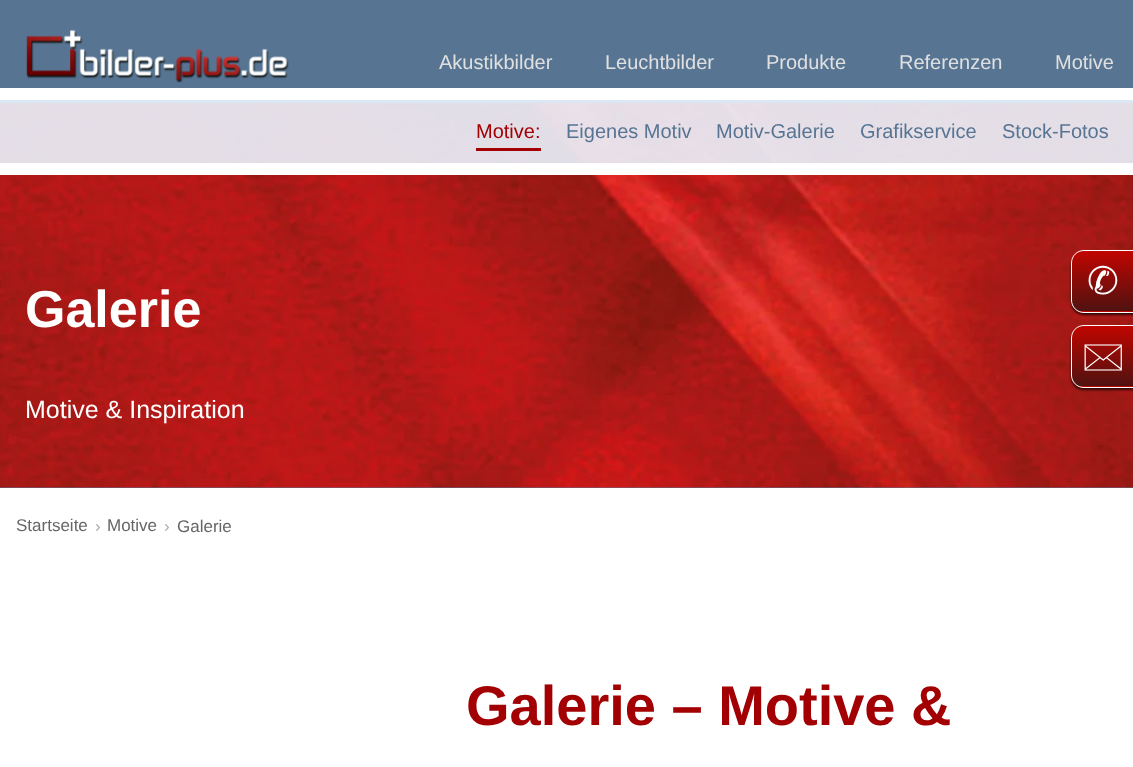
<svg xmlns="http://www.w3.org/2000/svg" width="1133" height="767">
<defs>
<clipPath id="clip1"><path d="M1084 250h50v63h-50c-7 0-13-6-13-13v-37c0-7 6-13 13-13z"/></clipPath>
<linearGradient id="g1" gradientUnits="userSpaceOnUse" x1="1103" y1="251" x2="1103" y2="311"><stop offset="0" stop-color="#c10500"/><stop offset="1" stop-color="#4f1210"/></linearGradient>
<linearGradient id="g2" gradientUnits="userSpaceOnUse" x1="1103" y1="311" x2="1103" y2="371"><stop offset="0" stop-color="#c10500"/><stop offset="1" stop-color="#4f1210"/></linearGradient>
<clipPath id="clip2"><path d="M1084 325h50v63h-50c-7 0-13-6-13-13v-37c0-7 6-13 13-13z"/></clipPath>
<linearGradient id="g3" gradientUnits="userSpaceOnUse" x1="1103" y1="326" x2="1103" y2="386"><stop offset="0" stop-color="#c10500"/><stop offset="1" stop-color="#4f1210"/></linearGradient>
<linearGradient id="g4" gradientUnits="userSpaceOnUse" x1="1103" y1="386" x2="1103" y2="446"><stop offset="0" stop-color="#c10500"/><stop offset="1" stop-color="#4f1210"/></linearGradient>
</defs>
<rect width="100%" height="100%" fill="#fff"/>
<rect width="1133" height="103" fill="#577593"/>
<rect y="88" width="1133" height="12" fill="#fff"/>
<image x="26" y="30" width="263" height="53" href="media/1.png"/>
<text x="439" y="69" style="font-family:Liberation Sans;font-size:20px;fill:#e0e0e0">Akustikbilder</text>
<text x="605" y="69" style="font-family:Liberation Sans;font-size:20px;fill:#e0e0e0">Leuchtbilder</text>
<text x="766" y="69" style="font-family:Liberation Sans;font-size:20px;fill:#e0e0e0">Produkte</text>
<text x="899" y="69" style="font-family:Liberation Sans;font-size:20px;fill:#e0e0e0">Referenzen</text>
<text x="1055" y="69" style="font-family:Liberation Sans;font-size:20px;fill:#e0e0e0">Motive</text>
<rect y="487" width="1133" height="1" fill="#577593"/>
<image x="0" y="103" width="1133" height="385" href="media/2.png"/>
<rect y="100" width="1133" height="63" fill="#eaf4fee6"/>
<rect y="163" width="1133" height="12" fill="#fff"/>
<text x="476" y="138" style="font-family:Liberation Sans;font-size:20px;fill:#a20002">Motive:</text>
<rect x="476" y="148" width="65" height="3" fill="#a20002"/>
<text x="566" y="138" style="font-family:Liberation Sans;font-size:20px;fill:#577593">Eigenes Motiv</text>
<text x="716" y="138" style="font-family:Liberation Sans;font-size:20px;fill:#577593">Motiv-Galerie</text>
<text x="860" y="138" style="font-family:Liberation Sans;font-size:20px;fill:#577593">Grafikservice</text>
<text x="1002" y="138" style="font-family:Liberation Sans;font-size:20px;fill:#577593">Stock-Fotos</text>
<rect x="1071" y="253" width="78" height="62" rx="13" fill="#000000b3" filter="blur(1px)"/>
<g clip-path="url(#clip1)">
<rect x="1071" y="251" width="62" height="60" fill="url(#g1)"/>
<rect x="1071" y="311" width="62" height="2" fill="url(#g2)"/>
</g>
<path d="M1084 250.5h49.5v62h-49.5c-7 0-12.5-5.5-12.5-12.5v-37c0-7 5.5-12.5 12.5-12.5z" fill="none" stroke="#fff"/>
<text x="1087" y="294" style="font-family:DejaVu Sans;font-size:38px;fill:#fff">✆</text>
<text x="25" y="327" style="font-family:Liberation Sans;font-size:52px;font-weight:bold;fill:#fff">Galerie</text>
<text x="25" y="418" style="font-family:Liberation Sans;font-size:25px;fill:#fff">Motive &amp; Inspiration</text>
<text x="16" y="531" style="font-family:Liberation Sans;font-size:17px;fill:#666">Startseite</text>
<text x="95" y="532" style="font-family:Liberation Sans;font-size:17px;fill:#aaa">›</text>
<text x="107" y="531" style="font-family:Liberation Sans;font-size:17px;fill:#666">Motive</text>
<text x="164" y="532" style="font-family:Liberation Sans;font-size:17px;fill:#aaa">›</text>
<text x="177" y="532" style="font-family:Liberation Sans;font-size:17px;fill:#666">Galerie</text>
<text x="466" y="725" style="font-family:Liberation Sans;font-size:56px;font-weight:bold;fill:#a20002">Galerie – Motive &amp;</text>
<rect x="1071" y="328" width="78" height="62" rx="13" fill="#000000b3" filter="blur(1px)"/>
<g clip-path="url(#clip2)">
<rect x="1071" y="326" width="62" height="60" fill="url(#g3)"/>
<rect x="1071" y="386" width="62" height="2" fill="url(#g4)"/>
</g>
<path d="M1084 325.5h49.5v62h-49.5c-7 0-12.5-5.5-12.5-12.5v-37c0-7 5.5-12.5 12.5-12.5z" fill="none" stroke="#fff"/>
<text x="1081" y="369" style="font-family:'Noto Sans Symbols 2';font-size:38px;fill:#fff">🖂</text>
</svg>
